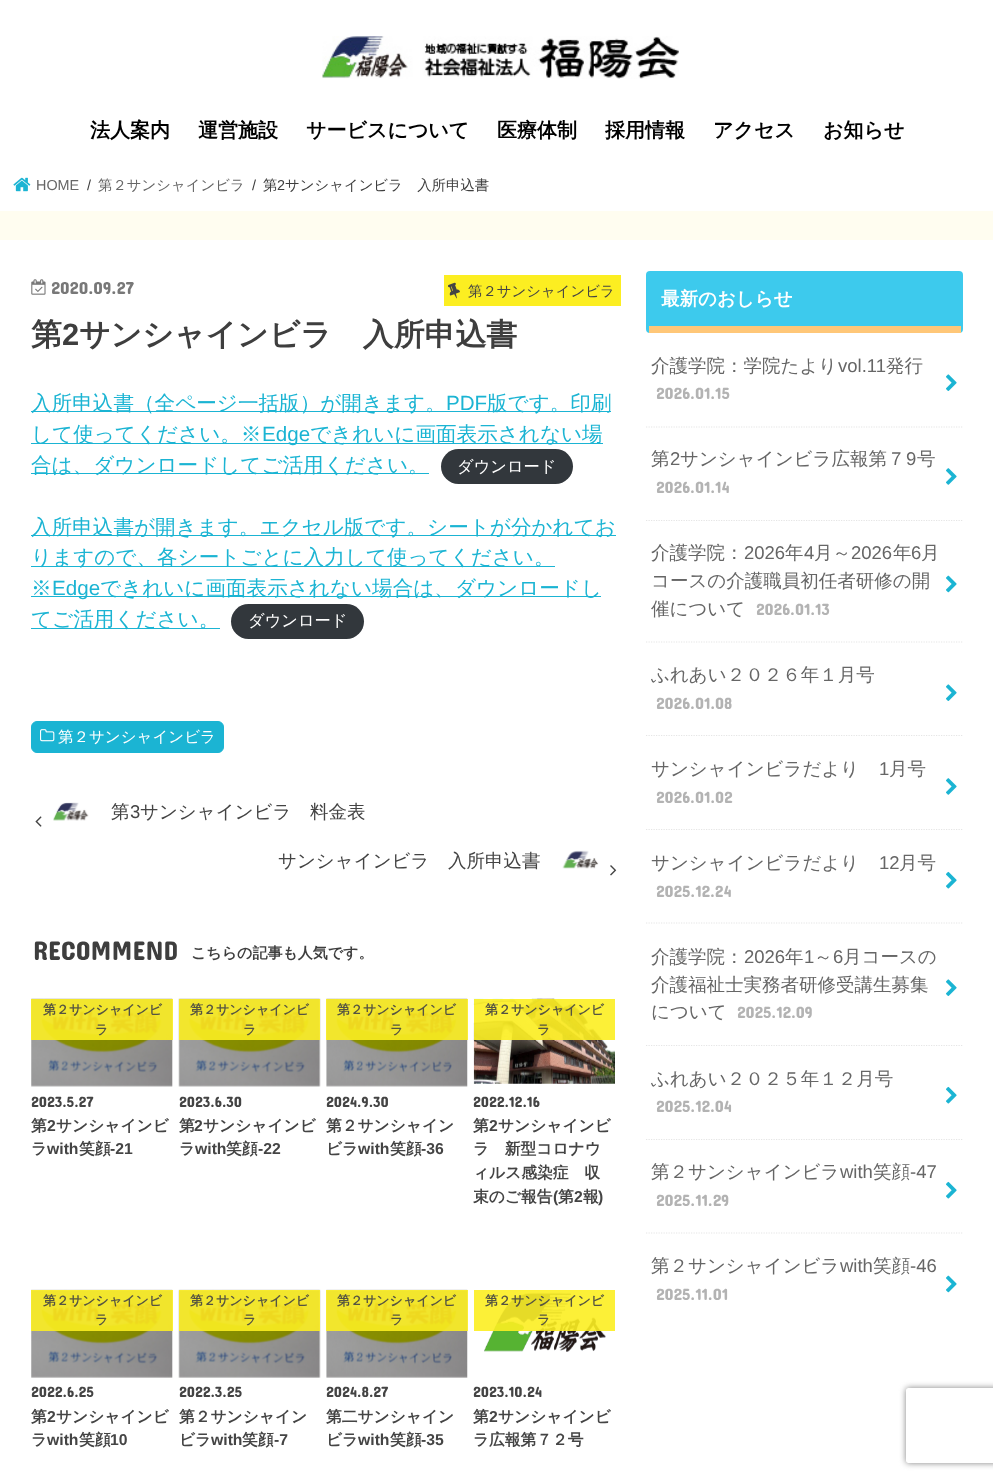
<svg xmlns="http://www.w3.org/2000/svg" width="993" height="1480">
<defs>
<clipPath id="clip1"><path d="M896 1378h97v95h-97zm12.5 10h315c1.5 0 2.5 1 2.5 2.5v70c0 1.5-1 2.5-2.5 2.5h-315c-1.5 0-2.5-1-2.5-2.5v-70c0-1.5 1-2.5 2.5-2.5z" clip-rule="evenodd"/></clipPath>
</defs>
<rect width="100%" height="100%" fill="#fffdf0"/>
<rect y="161" width="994" height="50" fill="#ddd" filter="blur(0.5px)"/>
<rect width="993" height="161" fill="#fff"/>
<image x="322" y="36" width="357" height="43" href="media/1.png"/>
<text x="90" y="137" style="font-family:WenQuanYi Zen Hei;font-size:20px;font-weight:bold;fill:#000">法人案内</text>
<text x="198" y="137" style="font-family:WenQuanYi Zen Hei;font-size:20px;font-weight:bold;fill:#000">運営施設</text>
<text x="306" y="137" style="font-family:WenQuanYi Zen Hei;font-size:20px;font-weight:bold;fill:#000">サービスについて</text>
<text x="497" y="137" style="font-family:WenQuanYi Zen Hei;font-size:20px;font-weight:bold;fill:#000">医療体制</text>
<text x="605" y="137" style="font-family:WenQuanYi Zen Hei;font-size:20px;font-weight:bold;fill:#000">採用情報</text>
<text x="713" y="137" style="font-family:WenQuanYi Zen Hei;font-size:20px;font-weight:bold;fill:#000">アクセス</text>
<text x="823" y="137" style="font-family:WenQuanYi Zen Hei;font-size:20px;font-weight:bold;fill:#000">お知らせ</text>
<rect y="161" width="993" height="50" fill="#fff"/>
<image x="13" y="177" width="18" height="15" href="media/2.png"/>
<text x="36" y="190" style="font-family:Liberation Sans;font-size:14.4px;fill:#666">HOME</text>
<text x="87" y="190" style="font-family:Liberation Sans;font-size:14.4px;fill:#3e3e3e">/</text>
<text x="98" y="190" style="font-family:WenQuanYi Zen Hei;font-size:14.4px;font-weight:500;fill:#666">第２サンシャインビラ</text>
<text x="252" y="190" style="font-family:Liberation Sans;font-size:14.4px;fill:#3e3e3e">/</text>
<text x="263" y="190" style="font-family:WenQuanYi Zen Hei;font-size:14.4px;font-weight:500;fill:#3e3e3e">第</text>
<text x="277" y="190" style="font-family:Liberation Sans;font-size:14.4px;fill:#3e3e3e">2</text>
<text x="285" y="190" style="font-family:WenQuanYi Zen Hei;font-size:14.4px;font-weight:500;fill:#3e3e3e">サンシャインビラ　入所申込書</text>
<rect y="240" width="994" height="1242" fill="#ddd" filter="blur(0.5px)"/>
<rect y="240" width="993" height="1240" fill="#fff"/>
<image x="31" y="279" width="15" height="16" href="media/3.png"/>
<text x="51" y="294" style="font-family:Concert One;font-size:17.5px;fill:#787878">2020.09.27</text>
<rect x="444" y="275" width="177" height="31" fill="#fcee21"/>
<image x="448" y="282" width="12" height="17" href="media/4.png"/>
<text x="468" y="296" style="font-family:WenQuanYi Zen Hei;font-size:14.4px;font-weight:500;fill:#444">第２サンシャインビラ</text>
<text x="31" y="345" style="font-family:WenQuanYi Zen Hei;font-size:30.9px;font-weight:bold;fill:#3e3e3e">第</text>
<text x="62" y="345" style="font-family:Liberation Sans;font-size:30.9px;font-weight:bold;fill:#3e3e3e">2</text>
<text x="79" y="345" style="font-family:WenQuanYi Zen Hei;font-size:30.9px;font-weight:bold;fill:#3e3e3e">サンシャインビラ　入所申込書</text>
<rect x="31" y="411" width="580" height="1" fill="#1bb4d3"/>
<text x="31" y="410" style="font-family:WenQuanYi Zen Hei;font-size:20.6px;font-weight:500;fill:#1bb4d3">入所申込書（全ページ一括版）が開きます。</text>
<text x="446" y="410" style="font-family:Liberation Sans;font-size:20.6px;fill:#1bb4d3">PDF</text>
<text x="487" y="410" style="font-family:WenQuanYi Zen Hei;font-size:20.6px;font-weight:500;fill:#1bb4d3">版です。印刷</text>
<rect x="31" y="443" width="572" height="1" fill="#1bb4d3"/>
<text x="31" y="441" style="font-family:WenQuanYi Zen Hei;font-size:20.6px;font-weight:500;fill:#1bb4d3">して使ってください。※</text>
<text x="262" y="441" style="font-family:Liberation Sans;font-size:20.6px;fill:#1bb4d3">Edge</text>
<text x="310" y="441" style="font-family:WenQuanYi Zen Hei;font-size:20.6px;font-weight:500;fill:#1bb4d3">できれいに画面表示されない場</text>
<rect x="31" y="473" width="398" height="1" fill="#1bb4d3"/>
<text x="31" y="472" style="font-family:WenQuanYi Zen Hei;font-size:20.6px;font-weight:500;fill:#1bb4d3">合は、ダウンロードしてご活用ください。</text>
<rect x="441" y="449" width="132" height="35" rx="17.5" fill="#32373c"/>
<text x="457" y="472" style="font-family:WenQuanYi Zen Hei;font-size:16.25px;font-weight:500;fill:#fff">ダウンロード</text>
<rect x="31" y="535" width="585" height="1" fill="#1bb4d3"/>
<text x="31" y="534" style="font-family:WenQuanYi Zen Hei;font-size:20.6px;font-weight:500;fill:#1bb4d3">入所申込書が開きます。エクセル版です。シートが分かれてお</text>
<rect x="31" y="566" width="524" height="1" fill="#1bb4d3"/>
<text x="31" y="564" style="font-family:WenQuanYi Zen Hei;font-size:20.6px;font-weight:500;fill:#1bb4d3">りますので、各シートごとに入力して使ってください。</text>
<text x="31" y="595" style="font-family:WenQuanYi Zen Hei;font-size:20.6px;font-weight:500;fill:#1bb4d3">※</text>
<rect x="31" y="596" width="570" height="1" fill="#1bb4d3"/>
<text x="52" y="595" style="font-family:Liberation Sans;font-size:20.6px;fill:#1bb4d3">Edge</text>
<text x="100" y="595" style="font-family:WenQuanYi Zen Hei;font-size:20.6px;font-weight:500;fill:#1bb4d3">できれいに画面表示されない場合は、ダウンロードし</text>
<rect x="31" y="628" width="189" height="1" fill="#1bb4d3"/>
<text x="31" y="626" style="font-family:WenQuanYi Zen Hei;font-size:20.6px;font-weight:500;fill:#1bb4d3">てご活用ください。</text>
<rect x="231" y="604" width="133" height="35" rx="17.5" fill="#32373c"/>
<text x="248" y="626" style="font-family:WenQuanYi Zen Hei;font-size:16.25px;font-weight:500;fill:#fff">ダウンロード</text>
<rect x="31.5" y="721.5" width="192" height="31" rx="5.5" fill="#1bb4d3" stroke="#1bb4d3"/>
<image x="40" y="729" width="15" height="13" href="media/5.png"/>
<text x="58" y="742" style="font-family:WenQuanYi Zen Hei;font-size:15.5px;font-weight:500;fill:#fff">第２サンシャインビラ</text>
<image x="35" y="816" width="7" height="11" href="media/6.png"/>
<image x="53" y="802" width="36" height="19" href="media/7.png"/>
<text x="111" y="818" style="font-family:WenQuanYi Zen Hei;font-size:18.5px;font-weight:500;fill:#444">第</text>
<text x="130" y="818" style="font-family:Liberation Sans;font-size:18.5px;fill:#444">3</text>
<text x="140" y="818" style="font-family:WenQuanYi Zen Hei;font-size:18.5px;font-weight:500;fill:#444">サンシャインビラ　料金表</text>
<text x="278" y="867" style="font-family:WenQuanYi Zen Hei;font-size:18.5px;font-weight:500;fill:#444">サンシャインビラ　入所申込書</text>
<image x="562" y="850" width="37" height="19" href="media/8.png"/>
<image x="610" y="865" width="7" height="11" href="media/9.png"/>
<text x="33" y="960" style="font-family:Concert One;font-size:27px;fill:#3e3e3e">RECOMMEND</text>
<text x="191" y="958" style="font-family:WenQuanYi Zen Hei;font-size:15px;font-weight:bold;fill:#3e3e3e">こちらの記事も人気です。</text>
<image x="31" y="998" width="142" height="89" href="media/10.png"/>
<rect x="31" y="999" width="142" height="41" fill="#fcee21e6"/>
<text x="43" y="1014" style="font-family:WenQuanYi Zen Hei;font-size:13px;font-weight:bold;fill:#555442">第２サンシャインビ</text>
<text x="95" y="1034" style="font-family:WenQuanYi Zen Hei;font-size:13px;font-weight:bold;fill:#555442">ラ</text>
<text x="31" y="1107" style="font-family:Concert One;font-size:15px;fill:#444">2023.5.27</text>
<text x="31" y="1131" style="font-family:WenQuanYi Zen Hei;font-size:15.75px;font-weight:bold;fill:#444">第</text>
<text x="47" y="1131" style="font-family:Liberation Sans;font-size:15.75px;font-weight:bold;fill:#444">2</text>
<text x="56" y="1131" style="font-family:WenQuanYi Zen Hei;font-size:15.75px;font-weight:bold;fill:#444">サンシャインビ</text>
<text x="31" y="1154" style="font-family:WenQuanYi Zen Hei;font-size:15.75px;font-weight:bold;fill:#444">ラ</text>
<text x="47" y="1154" style="font-family:Liberation Sans;font-size:15.75px;font-weight:bold;fill:#444">with</text>
<text x="79" y="1154" style="font-family:WenQuanYi Zen Hei;font-size:15.75px;font-weight:bold;fill:#444">笑顔</text>
<text x="110" y="1154" style="font-family:Liberation Sans;font-size:15.75px;font-weight:bold;fill:#444">-21</text>
<image x="178" y="998" width="143" height="89" href="media/11.png"/>
<rect x="179" y="999" width="141" height="41" fill="#fcee21e6"/>
<text x="190" y="1014" style="font-family:WenQuanYi Zen Hei;font-size:13px;font-weight:bold;fill:#555442">第２サンシャインビ</text>
<text x="243" y="1034" style="font-family:WenQuanYi Zen Hei;font-size:13px;font-weight:bold;fill:#555442">ラ</text>
<text x="179" y="1107" style="font-family:Concert One;font-size:15px;fill:#444">2023.6.30</text>
<text x="179" y="1131" style="font-family:WenQuanYi Zen Hei;font-size:15.75px;font-weight:bold;fill:#444">第</text>
<text x="194" y="1131" style="font-family:Liberation Sans;font-size:15.75px;font-weight:bold;fill:#444">2</text>
<text x="203" y="1131" style="font-family:WenQuanYi Zen Hei;font-size:15.75px;font-weight:bold;fill:#444">サンシャインビ</text>
<text x="179" y="1154" style="font-family:WenQuanYi Zen Hei;font-size:15.75px;font-weight:bold;fill:#444">ラ</text>
<text x="195" y="1154" style="font-family:Liberation Sans;font-size:15.75px;font-weight:bold;fill:#444">with</text>
<text x="226" y="1154" style="font-family:WenQuanYi Zen Hei;font-size:15.75px;font-weight:bold;fill:#444">笑顔</text>
<text x="258" y="1154" style="font-family:Liberation Sans;font-size:15.75px;font-weight:bold;fill:#444">-22</text>
<image x="326" y="998" width="142" height="89" href="media/12.png"/>
<rect x="326" y="999" width="142" height="41" fill="#fcee21e6"/>
<text x="337" y="1014" style="font-family:WenQuanYi Zen Hei;font-size:13px;font-weight:bold;fill:#555442">第２サンシャインビ</text>
<text x="390" y="1034" style="font-family:WenQuanYi Zen Hei;font-size:13px;font-weight:bold;fill:#555442">ラ</text>
<text x="326" y="1107" style="font-family:Concert One;font-size:15px;fill:#444">2024.9.30</text>
<text x="326" y="1131" style="font-family:WenQuanYi Zen Hei;font-size:15.75px;font-weight:bold;fill:#444">第２サンシャイン</text>
<text x="326" y="1154" style="font-family:WenQuanYi Zen Hei;font-size:15.75px;font-weight:bold;fill:#444">ビラ</text>
<text x="358" y="1154" style="font-family:Liberation Sans;font-size:15.75px;font-weight:bold;fill:#444">with</text>
<text x="390" y="1154" style="font-family:WenQuanYi Zen Hei;font-size:15.75px;font-weight:bold;fill:#444">笑顔</text>
<text x="421" y="1154" style="font-family:Liberation Sans;font-size:15.75px;font-weight:bold;fill:#444">-36</text>
<image x="473" y="998" width="142" height="86" href="media/13.png"/>
<rect x="474" y="999" width="141" height="41" fill="#fcee21e6"/>
<text x="485" y="1014" style="font-family:WenQuanYi Zen Hei;font-size:13px;font-weight:bold;fill:#555442">第２サンシャインビ</text>
<text x="537" y="1034" style="font-family:WenQuanYi Zen Hei;font-size:13px;font-weight:bold;fill:#555442">ラ</text>
<text x="473" y="1107" style="font-family:Concert One;font-size:15px;fill:#444">2022.12.16</text>
<text x="473" y="1131" style="font-family:WenQuanYi Zen Hei;font-size:15.75px;font-weight:bold;fill:#444">第</text>
<text x="489" y="1131" style="font-family:Liberation Sans;font-size:15.75px;font-weight:bold;fill:#444">2</text>
<text x="498" y="1131" style="font-family:WenQuanYi Zen Hei;font-size:15.75px;font-weight:bold;fill:#444">サンシャインビ</text>
<text x="473" y="1154" style="font-family:WenQuanYi Zen Hei;font-size:15.75px;font-weight:bold;fill:#444">ラ　新型コロナウ</text>
<text x="473" y="1178" style="font-family:WenQuanYi Zen Hei;font-size:15.75px;font-weight:bold;fill:#444">ィルス感染症　収</text>
<text x="473" y="1202" style="font-family:WenQuanYi Zen Hei;font-size:15.75px;font-weight:bold;fill:#444">束のご報告</text>
<text x="553" y="1202" style="font-family:Liberation Sans;font-size:15.75px;font-weight:bold;fill:#444">(</text>
<text x="558" y="1202" style="font-family:WenQuanYi Zen Hei;font-size:15.75px;font-weight:bold;fill:#444">第</text>
<text x="574" y="1202" style="font-family:Liberation Sans;font-size:15.75px;font-weight:bold;fill:#444">2</text>
<text x="583" y="1202" style="font-family:WenQuanYi Zen Hei;font-size:15.75px;font-weight:bold;fill:#444">報</text>
<text x="598" y="1202" style="font-family:Liberation Sans;font-size:15.75px;font-weight:bold;fill:#444">)</text>
<image x="31" y="1289" width="142" height="89" href="media/14.png"/>
<rect x="31" y="1290" width="142" height="41" fill="#fcee21e6"/>
<text x="43" y="1305" style="font-family:WenQuanYi Zen Hei;font-size:13px;font-weight:bold;fill:#555442">第２サンシャインビ</text>
<text x="95" y="1324" style="font-family:WenQuanYi Zen Hei;font-size:13px;font-weight:bold;fill:#555442">ラ</text>
<text x="31" y="1397" style="font-family:Concert One;font-size:15px;fill:#444">2022.6.25</text>
<text x="31" y="1422" style="font-family:WenQuanYi Zen Hei;font-size:15.75px;font-weight:bold;fill:#444">第</text>
<text x="47" y="1422" style="font-family:Liberation Sans;font-size:15.75px;font-weight:bold;fill:#444">2</text>
<text x="56" y="1422" style="font-family:WenQuanYi Zen Hei;font-size:15.75px;font-weight:bold;fill:#444">サンシャインビ</text>
<text x="31" y="1445" style="font-family:WenQuanYi Zen Hei;font-size:15.75px;font-weight:bold;fill:#444">ラ</text>
<text x="47" y="1445" style="font-family:Liberation Sans;font-size:15.75px;font-weight:bold;fill:#444">with</text>
<text x="79" y="1445" style="font-family:WenQuanYi Zen Hei;font-size:15.75px;font-weight:bold;fill:#444">笑顔</text>
<text x="110" y="1445" style="font-family:Liberation Sans;font-size:15.75px;font-weight:bold;fill:#444">10</text>
<image x="178" y="1289" width="143" height="89" href="media/15.png"/>
<rect x="179" y="1290" width="141" height="41" fill="#fcee21e6"/>
<text x="190" y="1305" style="font-family:WenQuanYi Zen Hei;font-size:13px;font-weight:bold;fill:#555442">第２サンシャインビ</text>
<text x="243" y="1324" style="font-family:WenQuanYi Zen Hei;font-size:13px;font-weight:bold;fill:#555442">ラ</text>
<text x="179" y="1397" style="font-family:Concert One;font-size:15px;fill:#444">2022.3.25</text>
<text x="179" y="1422" style="font-family:WenQuanYi Zen Hei;font-size:15.75px;font-weight:bold;fill:#444">第２サンシャイン</text>
<text x="179" y="1445" style="font-family:WenQuanYi Zen Hei;font-size:15.75px;font-weight:bold;fill:#444">ビラ</text>
<text x="211" y="1445" style="font-family:Liberation Sans;font-size:15.75px;font-weight:bold;fill:#444">with</text>
<text x="242" y="1445" style="font-family:WenQuanYi Zen Hei;font-size:15.75px;font-weight:bold;fill:#444">笑顔</text>
<text x="274" y="1445" style="font-family:Liberation Sans;font-size:15.75px;font-weight:bold;fill:#444">-7</text>
<image x="326" y="1289" width="142" height="89" href="media/16.png"/>
<rect x="326" y="1290" width="142" height="41" fill="#fcee21e6"/>
<text x="337" y="1305" style="font-family:WenQuanYi Zen Hei;font-size:13px;font-weight:bold;fill:#555442">第２サンシャインビ</text>
<text x="390" y="1324" style="font-family:WenQuanYi Zen Hei;font-size:13px;font-weight:bold;fill:#555442">ラ</text>
<text x="326" y="1397" style="font-family:Concert One;font-size:15px;fill:#444">2024.8.27</text>
<text x="326" y="1422" style="font-family:WenQuanYi Zen Hei;font-size:15.75px;font-weight:bold;fill:#444">第二サンシャイン</text>
<text x="326" y="1445" style="font-family:WenQuanYi Zen Hei;font-size:15.75px;font-weight:bold;fill:#444">ビラ</text>
<text x="358" y="1445" style="font-family:Liberation Sans;font-size:15.75px;font-weight:bold;fill:#444">with</text>
<text x="390" y="1445" style="font-family:WenQuanYi Zen Hei;font-size:15.75px;font-weight:bold;fill:#444">笑顔</text>
<text x="421" y="1445" style="font-family:Liberation Sans;font-size:15.75px;font-weight:bold;fill:#444">-35</text>
<image x="484" y="1292" width="122" height="60" href="media/17.png"/>
<rect x="474" y="1290" width="141" height="41" fill="#fcee21e6"/>
<text x="485" y="1305" style="font-family:WenQuanYi Zen Hei;font-size:13px;font-weight:bold;fill:#555442">第２サンシャインビ</text>
<text x="537" y="1324" style="font-family:WenQuanYi Zen Hei;font-size:13px;font-weight:bold;fill:#555442">ラ</text>
<text x="473" y="1397" style="font-family:Concert One;font-size:15px;fill:#444">2023.10.24</text>
<text x="473" y="1422" style="font-family:WenQuanYi Zen Hei;font-size:15.75px;font-weight:bold;fill:#444">第</text>
<text x="489" y="1422" style="font-family:Liberation Sans;font-size:15.75px;font-weight:bold;fill:#444">2</text>
<text x="498" y="1422" style="font-family:WenQuanYi Zen Hei;font-size:15.75px;font-weight:bold;fill:#444">サンシャインビ</text>
<text x="473" y="1445" style="font-family:WenQuanYi Zen Hei;font-size:15.75px;font-weight:bold;fill:#444">ラ広報第７２号</text>
<rect x="646" y="271" width="317" height="62" rx="4" fill="#3dcaed"/>
<rect x="649" y="326" width="312" height="7" fill="#ffc778"/>
<text x="661" y="305" style="font-family:WenQuanYi Zen Hei;font-size:18.5px;font-weight:bold;fill:#fff">最新のおしらせ</text>
<path d="M646 427h316.5" fill="none" stroke="#e5e5e5" stroke-width="1.2" stroke-dasharray="1.25 1.25"/>
<text x="651" y="372" style="font-family:WenQuanYi Zen Hei;font-size:18.5px;font-weight:500;fill:#666">介護学院：学院たより</text>
<text x="838" y="372" style="font-family:Liberation Sans;font-size:18.5px;fill:#666">vol.11</text>
<text x="886" y="372" style="font-family:WenQuanYi Zen Hei;font-size:18.5px;font-weight:500;fill:#666">発行</text>
<image x="946" y="374" width="11" height="17" href="media/18.png"/>
<text x="656" y="399" style="font-family:Concert One;font-size:16.5px;fill:#b3b3b3">2026.01.15</text>
<path d="M646 520.5h316.5" fill="none" stroke="#e5e5e5" stroke-width="1.2" stroke-dasharray="1.25 1.25"/>
<text x="651" y="465" style="font-family:WenQuanYi Zen Hei;font-size:18.5px;font-weight:500;fill:#666">第</text>
<text x="670" y="465" style="font-family:Liberation Sans;font-size:18.5px;fill:#666">2</text>
<text x="680" y="465" style="font-family:WenQuanYi Zen Hei;font-size:18.5px;font-weight:500;fill:#666">サンシャインビラ広報第７</text>
<text x="906" y="465" style="font-family:Liberation Sans;font-size:18.5px;fill:#666">9</text>
<text x="917" y="465" style="font-family:WenQuanYi Zen Hei;font-size:18.5px;font-weight:500;fill:#666">号</text>
<image x="946" y="468" width="11" height="17" href="media/19.png"/>
<text x="656" y="493" style="font-family:Concert One;font-size:16.5px;fill:#b3b3b3">2026.01.14</text>
<path d="M646 642h316.5" fill="none" stroke="#e5e5e5" stroke-width="1.2" stroke-dasharray="1.25 1.25"/>
<text x="651" y="559" style="font-family:WenQuanYi Zen Hei;font-size:18.5px;font-weight:500;fill:#666">介護学院：</text>
<text x="744" y="559" style="font-family:Liberation Sans;font-size:18.5px;fill:#666">2026</text>
<text x="785" y="559" style="font-family:WenQuanYi Zen Hei;font-size:18.5px;font-weight:500;fill:#666">年</text>
<text x="804" y="559" style="font-family:Liberation Sans;font-size:18.5px;fill:#666">4</text>
<text x="814" y="559" style="font-family:WenQuanYi Zen Hei;font-size:18.5px;font-weight:500;fill:#666">月～</text>
<text x="851" y="559" style="font-family:Liberation Sans;font-size:18.5px;fill:#666">2026</text>
<text x="893" y="559" style="font-family:WenQuanYi Zen Hei;font-size:18.5px;font-weight:500;fill:#666">年</text>
<text x="911" y="559" style="font-family:Liberation Sans;font-size:18.5px;fill:#666">6</text>
<text x="921" y="559" style="font-family:WenQuanYi Zen Hei;font-size:18.5px;font-weight:500;fill:#666">月</text>
<text x="651" y="587" style="font-family:WenQuanYi Zen Hei;font-size:18.5px;font-weight:500;fill:#666">コースの介護職員初任者研修の開</text>
<image x="946" y="575" width="11" height="18" href="media/20.png"/>
<text x="651" y="615" style="font-family:WenQuanYi Zen Hei;font-size:18.5px;font-weight:500;fill:#666">催について</text>
<text x="756" y="615" style="font-family:Concert One;font-size:16.5px;fill:#b3b3b3">2026.01.13</text>
<path d="M646 735.5h316.5" fill="none" stroke="#e5e5e5" stroke-width="1.2" stroke-dasharray="1.25 1.25"/>
<text x="651" y="681" style="font-family:WenQuanYi Zen Hei;font-size:18.5px;font-weight:500;fill:#666">ふれあい２０２６年１月号</text>
<image x="946" y="684" width="11" height="17" href="media/18.png"/>
<text x="656" y="709" style="font-family:Concert One;font-size:16.5px;fill:#b3b3b3">2026.01.08</text>
<path d="M646 829.5h316.5" fill="none" stroke="#e5e5e5" stroke-width="1.2" stroke-dasharray="1.25 1.25"/>
<text x="651" y="775" style="font-family:WenQuanYi Zen Hei;font-size:18.5px;font-weight:500;fill:#666">サンシャインビラだより</text>
<text x="879" y="775" style="font-family:Liberation Sans;font-size:18.5px;fill:#666">1</text>
<text x="889" y="775" style="font-family:WenQuanYi Zen Hei;font-size:18.5px;font-weight:500;fill:#666">月号</text>
<image x="946" y="778" width="11" height="17" href="media/19.png"/>
<text x="656" y="803" style="font-family:Concert One;font-size:16.5px;fill:#b3b3b3">2026.01.02</text>
<path d="M646 923h316.5" fill="none" stroke="#e5e5e5" stroke-width="1.2" stroke-dasharray="1.25 1.25"/>
<text x="651" y="869" style="font-family:WenQuanYi Zen Hei;font-size:18.5px;font-weight:500;fill:#666">サンシャインビラだより</text>
<text x="879" y="869" style="font-family:Liberation Sans;font-size:18.5px;fill:#666">12</text>
<text x="899" y="869" style="font-family:WenQuanYi Zen Hei;font-size:18.5px;font-weight:500;fill:#666">月号</text>
<image x="946" y="871" width="11" height="18" href="media/21.png"/>
<text x="656" y="897" style="font-family:Concert One;font-size:16.5px;fill:#b3b3b3">2025.12.24</text>
<path d="M646 1045.5h316.5" fill="none" stroke="#e5e5e5" stroke-width="1.2" stroke-dasharray="1.25 1.25"/>
<text x="651" y="963" style="font-family:WenQuanYi Zen Hei;font-size:18.5px;font-weight:500;fill:#666">介護学院：</text>
<text x="744" y="963" style="font-family:Liberation Sans;font-size:18.5px;fill:#666">2026</text>
<text x="785" y="963" style="font-family:WenQuanYi Zen Hei;font-size:18.5px;font-weight:500;fill:#666">年</text>
<text x="804" y="963" style="font-family:Liberation Sans;font-size:18.5px;fill:#666">1</text>
<text x="814" y="963" style="font-family:WenQuanYi Zen Hei;font-size:18.5px;font-weight:500;fill:#666">～</text>
<text x="833" y="963" style="font-family:Liberation Sans;font-size:18.5px;fill:#666">6</text>
<text x="843" y="963" style="font-family:WenQuanYi Zen Hei;font-size:18.5px;font-weight:500;fill:#666">月コースの</text>
<text x="651" y="991" style="font-family:WenQuanYi Zen Hei;font-size:18.5px;font-weight:500;fill:#666">介護福祉士実務者研修受講生募集</text>
<image x="946" y="979" width="11" height="17" href="media/18.png"/>
<text x="651" y="1018" style="font-family:WenQuanYi Zen Hei;font-size:18.5px;font-weight:500;fill:#666">について</text>
<text x="737" y="1018" style="font-family:Concert One;font-size:16.5px;fill:#b3b3b3">2025.12.09</text>
<path d="M646 1139.5h316.5" fill="none" stroke="#e5e5e5" stroke-width="1.2" stroke-dasharray="1.25 1.25"/>
<text x="651" y="1085" style="font-family:WenQuanYi Zen Hei;font-size:18.5px;font-weight:500;fill:#666">ふれあい２０２５年１２月号</text>
<image x="946" y="1086" width="11" height="18" href="media/21.png"/>
<text x="656" y="1112" style="font-family:Concert One;font-size:16.5px;fill:#b3b3b3">2025.12.04</text>
<path d="M646 1233h316.5" fill="none" stroke="#e5e5e5" stroke-width="1.2" stroke-dasharray="1.25 1.25"/>
<text x="651" y="1178" style="font-family:WenQuanYi Zen Hei;font-size:18.5px;font-weight:500;fill:#666">第２サンシャインビラ</text>
<text x="840" y="1178" style="font-family:Liberation Sans;font-size:18.5px;fill:#666">with</text>
<text x="873" y="1178" style="font-family:WenQuanYi Zen Hei;font-size:18.5px;font-weight:500;fill:#666">笑顔</text>
<text x="910" y="1178" style="font-family:Liberation Sans;font-size:18.5px;fill:#666">-47</text>
<image x="946" y="1181" width="11" height="18" href="media/21.png"/>
<text x="656" y="1206" style="font-family:Concert One;font-size:16.5px;fill:#b3b3b3">2025.11.29</text>
<text x="651" y="1272" style="font-family:WenQuanYi Zen Hei;font-size:18.5px;font-weight:500;fill:#666">第２サンシャインビラ</text>
<text x="840" y="1272" style="font-family:Liberation Sans;font-size:18.5px;fill:#666">with</text>
<text x="873" y="1272" style="font-family:WenQuanYi Zen Hei;font-size:18.5px;font-weight:500;fill:#666">笑顔</text>
<text x="910" y="1272" style="font-family:Liberation Sans;font-size:18.5px;fill:#666">-46</text>
<image x="946" y="1275" width="11" height="18" href="media/20.png"/>
<text x="656" y="1300" style="font-family:Concert One;font-size:16.5px;fill:#b3b3b3">2025.11.01</text>
<g clip-path="url(#clip1)">
<rect x="906" y="1388" width="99" height="75" rx="2.5" fill="#808080" filter="blur(3px)"/>
</g>
</svg>
